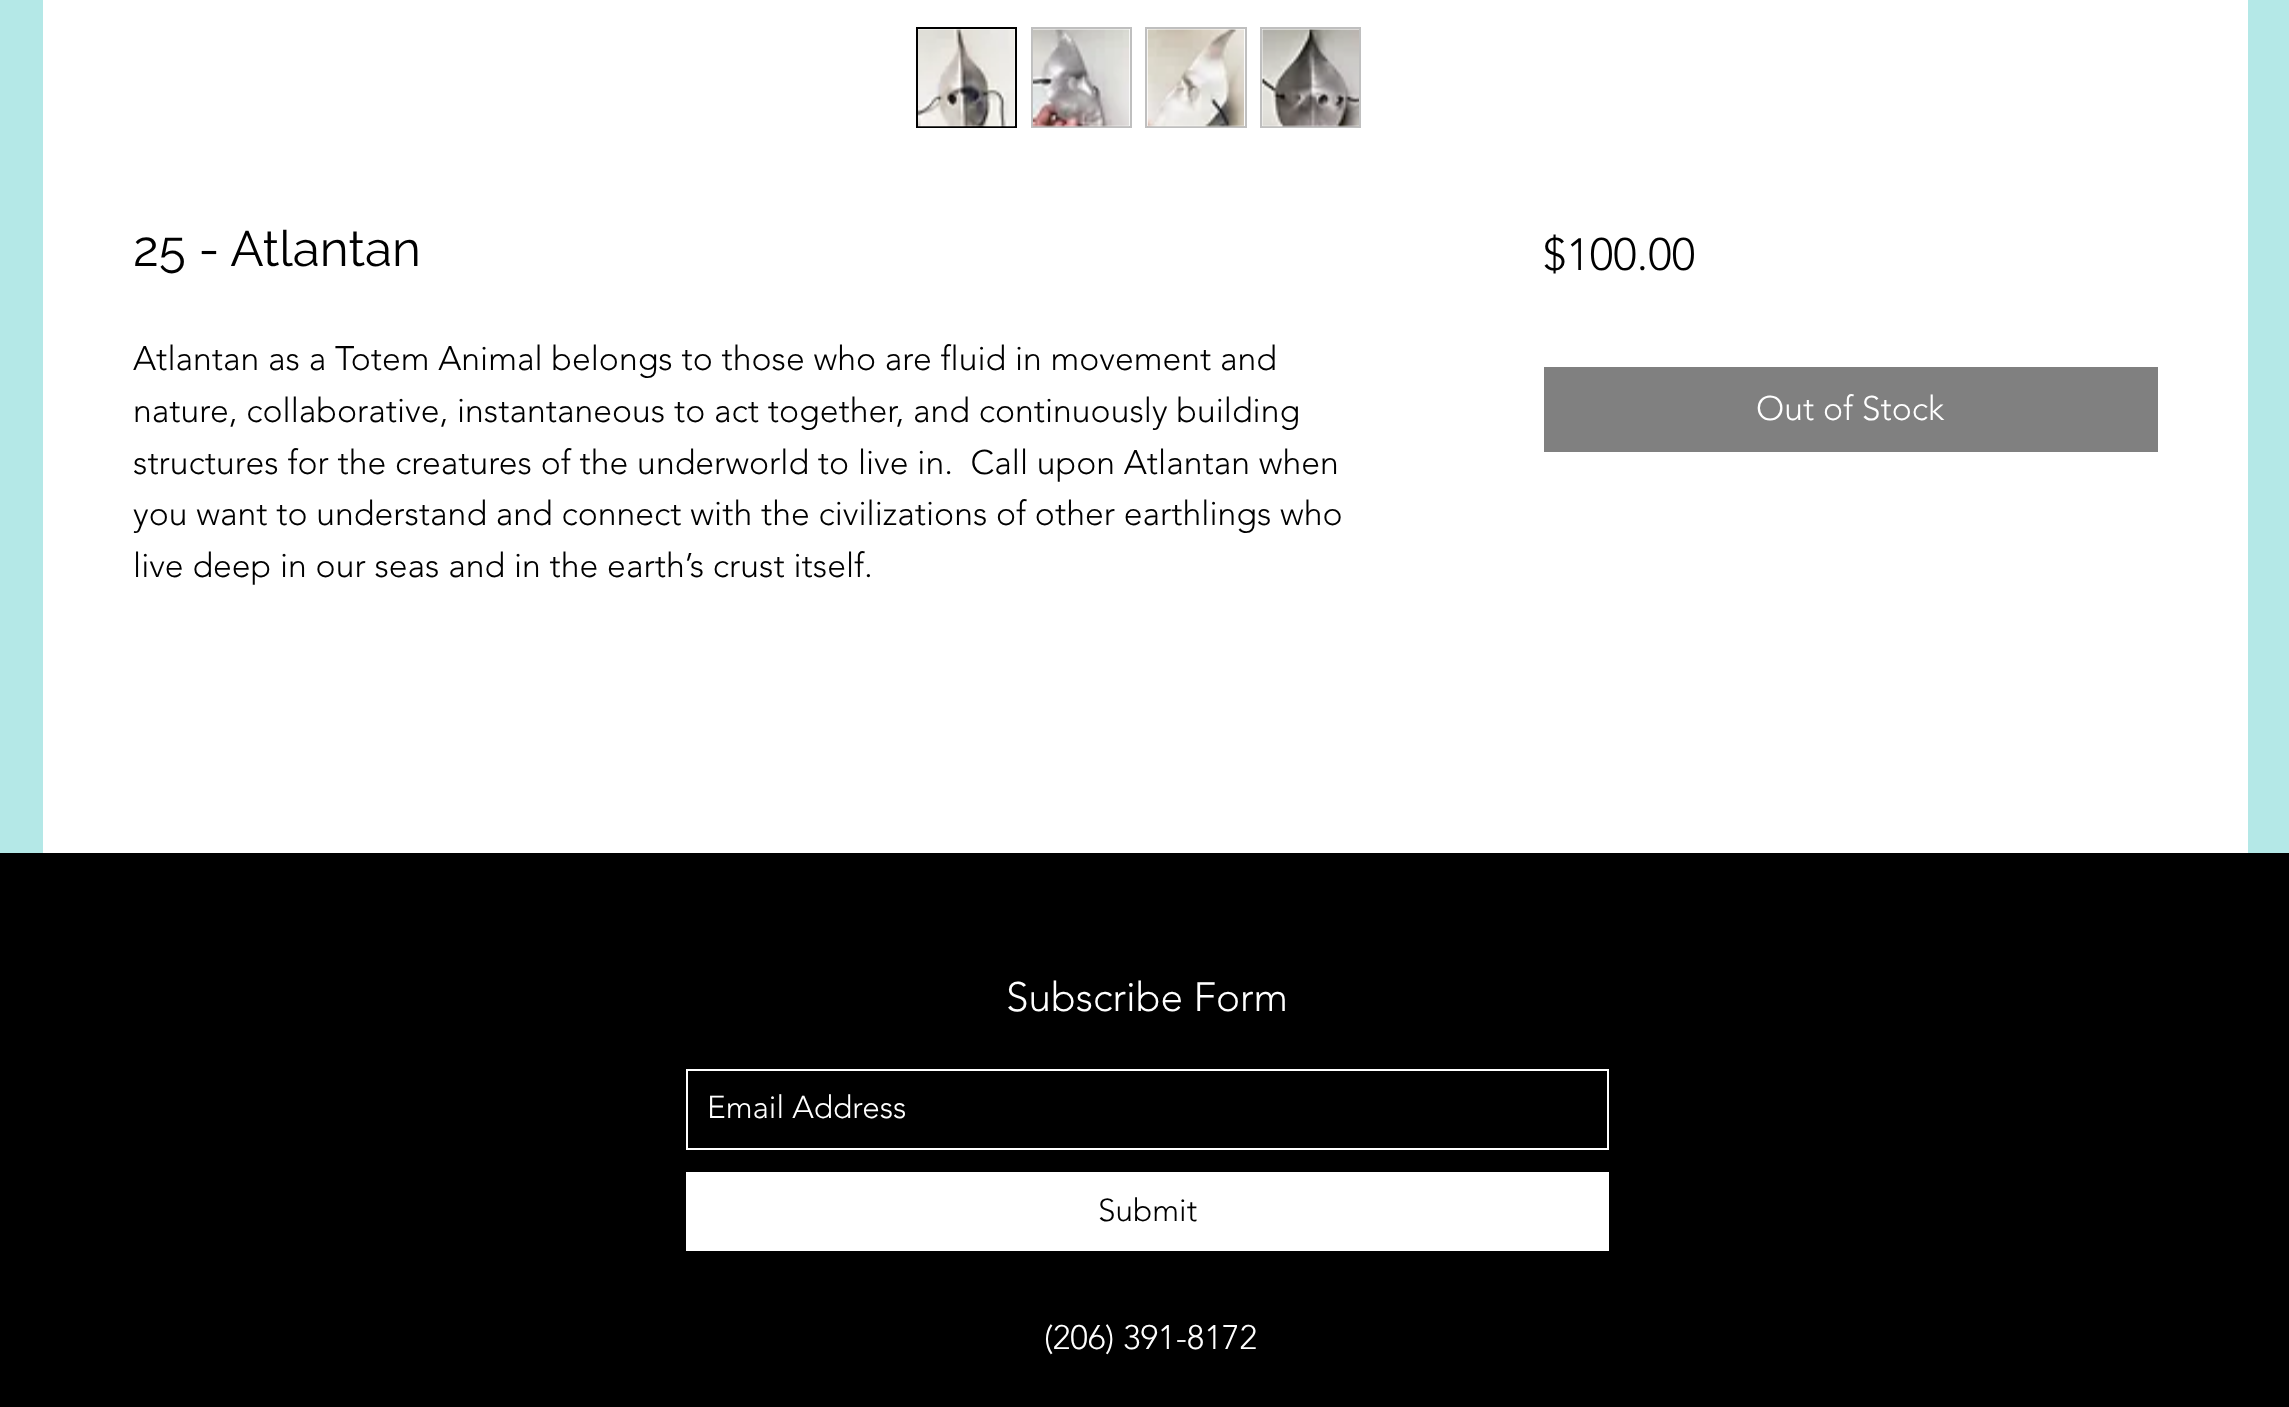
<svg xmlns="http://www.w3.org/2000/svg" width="2289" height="1407">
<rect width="100%" height="100%" fill="#b4e8e7"/>
<rect x="43" width="2205" height="853" fill="#fff"/>
<rect x="917" y="28" width="99" height="99" fill="none" stroke="#000" stroke-width="2"/>
<image x="918" y="29" width="97" height="98" href="media/1.png"/>
<rect x="1032" y="28" width="99" height="99" fill="none" stroke="#bfbfbf" stroke-width="2"/>
<image x="1032" y="29" width="98" height="98" href="media/2.png"/>
<rect x="1146" y="28" width="100" height="99" fill="none" stroke="#bfbfbf" stroke-width="2"/>
<image x="1147" y="29" width="98" height="98" href="media/3.png"/>
<rect x="1261" y="28" width="99" height="99" fill="none" stroke="#bfbfbf" stroke-width="2"/>
<image x="1262" y="29" width="97" height="98" href="media/4.png"/>
<text x="133" y="266" style="font-family:Raleway;font-size:49.5px;fill:#000">25 - Atlantan</text>
<text x="133" y="370" style="font-family:'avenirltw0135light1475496';font-size:33.75px;font-weight:300;fill:#000">Atlantan as a Totem Animal belongs to those who are fluid in movement and</text>
<text x="133" y="422" style="font-family:'avenirltw0135light1475496';font-size:33.75px;font-weight:300;fill:#000">nature, collaborative, instantaneous to act together, and continuously building</text>
<text x="133" y="474" style="font-family:'avenirltw0135light1475496';font-size:33.75px;font-weight:300;fill:#000" xml:space="preserve">structures for the creatures of the underworld to live in.  Call upon Atlantan when</text>
<text x="133" y="525" style="font-family:'avenirltw0135light1475496';font-size:33.75px;font-weight:300;fill:#000">you want to understand and connect with the civilizations of other earthlings who</text>
<text x="133" y="577" style="font-family:'avenirltw0135light1475496';font-size:33.75px;font-weight:300;fill:#000">live deep in our seas and in the earth’s crust itself.</text>
<text x="1543" y="270" style="font-family:'avenirltw0135light1475496';font-size:45px;font-weight:300;fill:#000">$100.00</text>
<rect x="1544" y="367" width="614" height="85" fill="#808080"/>
<text x="1756" y="420" style="font-family:'avenirltw0135light1475496';font-size:33.75px;font-weight:300;fill:#fff">Out of Stock</text>
<rect y="853" width="2289" height="554" fill="#000"/>
<text x="1006" y="1011" style="font-family:'avenirltw0135light1475496';font-size:40.5px;font-weight:300;fill:#fff">Subscribe Form</text>
<rect x="687" y="1070" width="921" height="79" fill="none" stroke="#fff" stroke-width="2"/>
<text x="707" y="1118" style="font-family:'avenirltw0135light1475496';font-size:31.5px;font-weight:300;fill:#fff">Email Address</text>
<rect x="686" y="1172" width="923" height="79" fill="#fff"/>
<text x="1098" y="1221" style="font-family:'avenirltw0135light1475496';font-size:31.5px;font-weight:300;fill:#000">Submit</text>
<text x="1044" y="1349" style="font-family:'avenirltw0135light1475496';font-size:33.75px;font-weight:300;fill:#fff">(206) 391-8172</text>
</svg>
